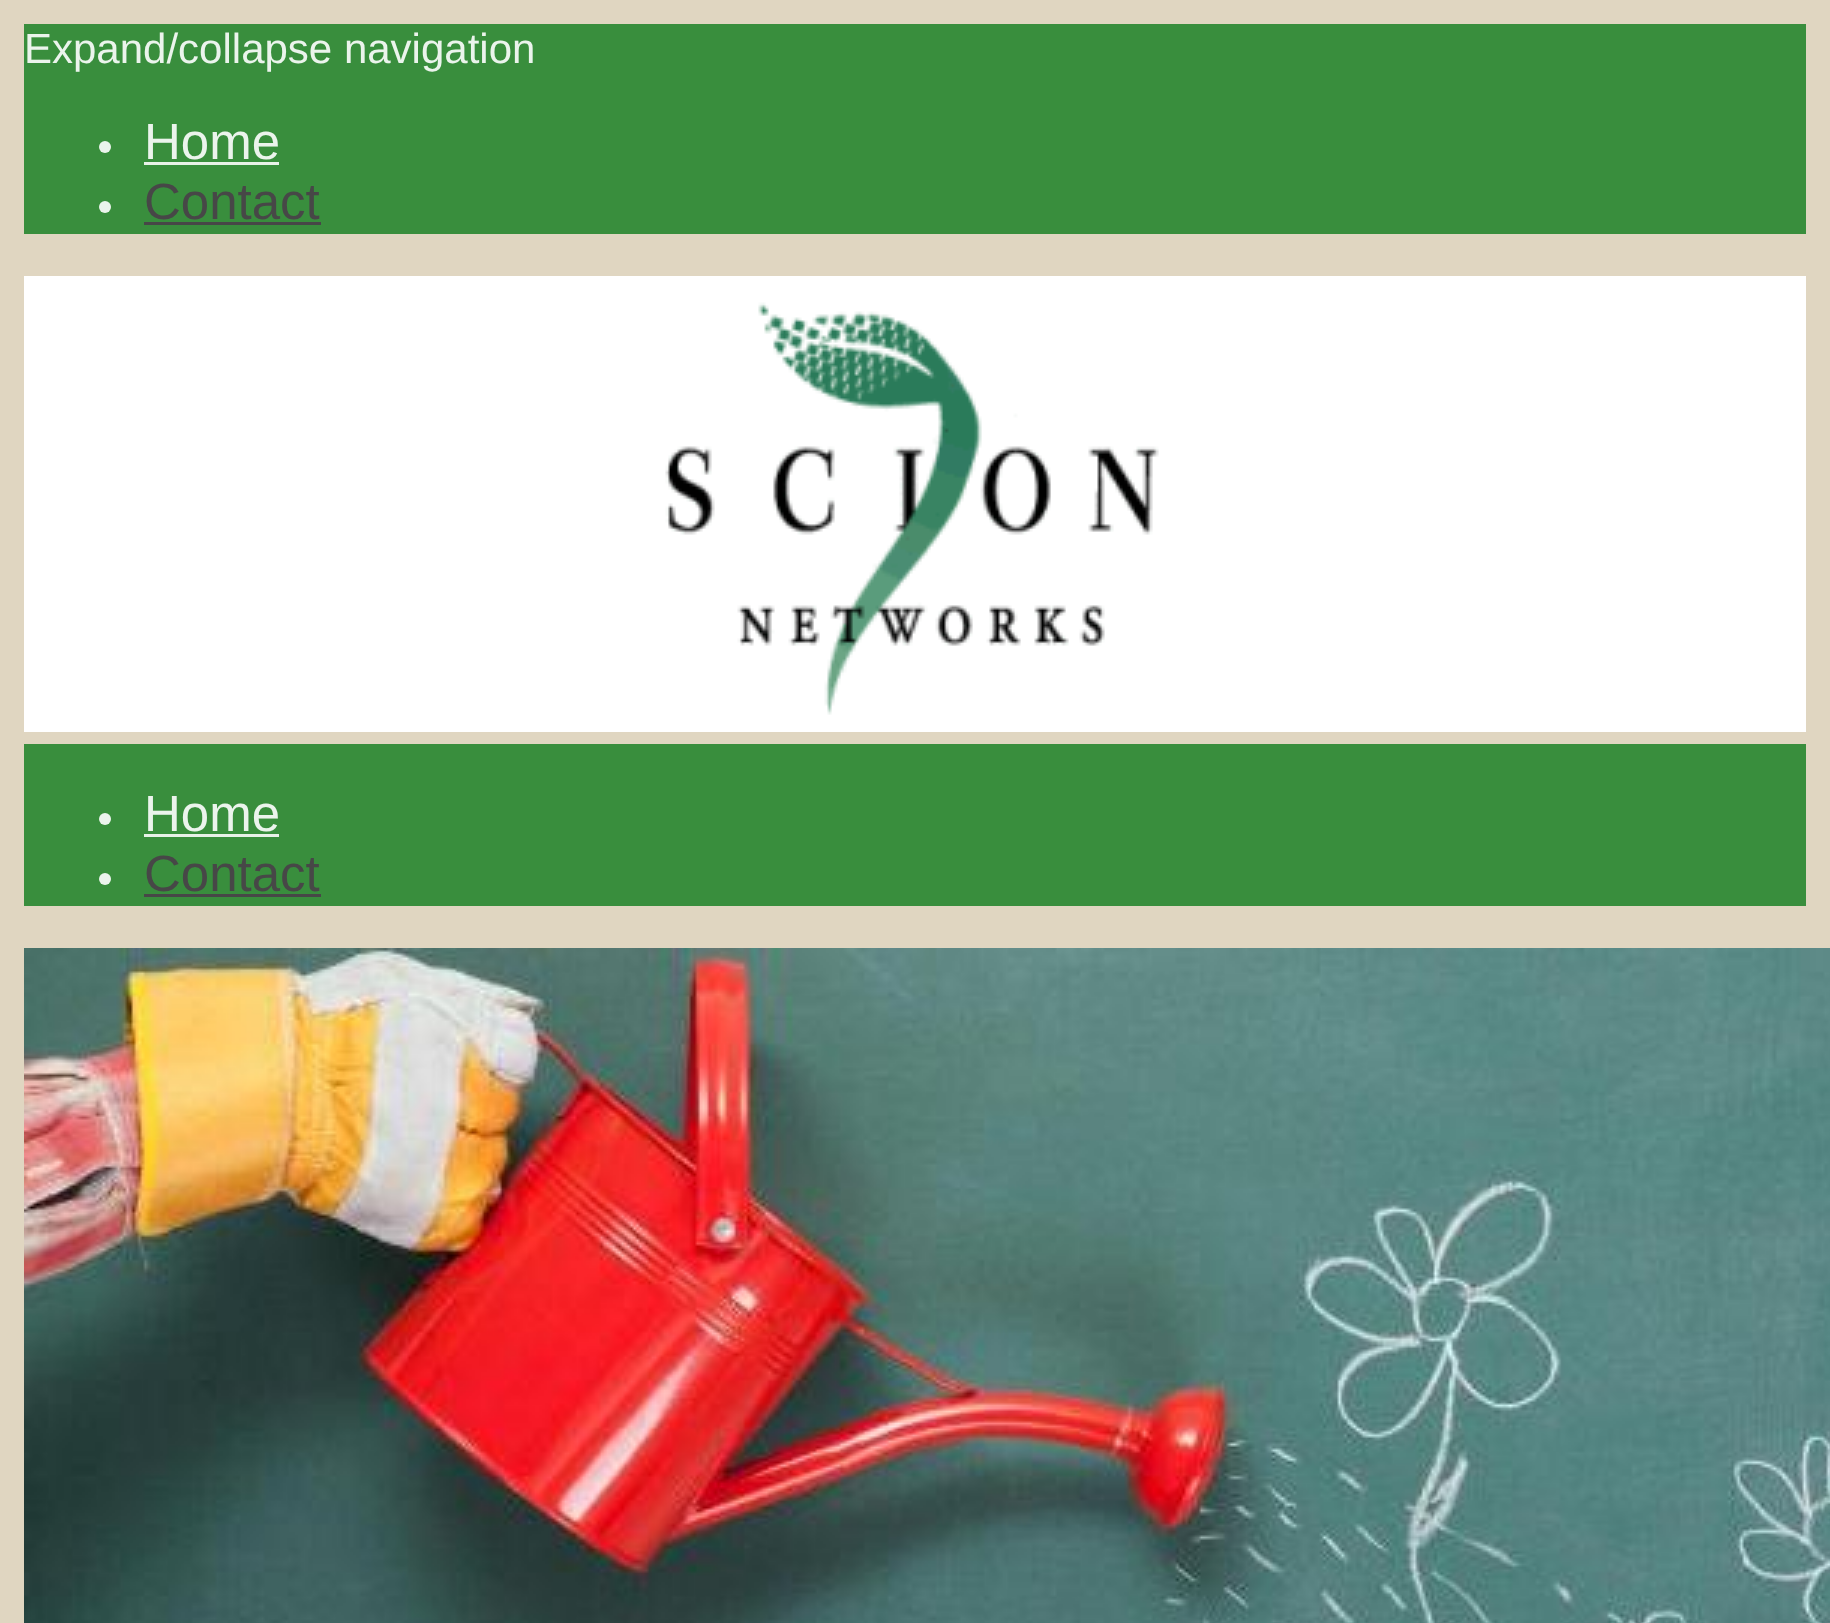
<svg xmlns="http://www.w3.org/2000/svg" width="1830" height="1623">
<rect width="100%" height="100%" fill="#e0d6c1"/>
<rect x="24" y="24" width="1782" height="210" fill="#398e3d"/>
<text x="24" y="63" style="font-family:Liberation Sans;font-size:42px;fill:#ebf4ec">Expand/collapse navigation</text>
<circle cx="105" cy="147" r="6" fill="#ebf4ec"/>
<text x="144" y="159" style="font-family:Liberation Sans;font-size:51px;fill:#ebf4ec">Home</text>
<rect x="144" y="162" width="135" height="3" fill="#e8f2e8"/>
<circle cx="105" cy="207" r="6" fill="#ebf4ec"/>
<text x="144" y="219" style="font-family:Liberation Sans;font-size:51px;fill:#474747">Contact</text>
<rect x="144" y="222" width="177" height="3" fill="#474747"/>
<rect x="24" y="276" width="1782" height="456" fill="#fff"/>
<image x="665" y="302" width="494" height="413" href="media/1.png"/>
<rect x="24" y="744" width="1782" height="162" fill="#398e3d"/>
<circle cx="105" cy="819" r="6" fill="#ebf4ec"/>
<text x="144" y="831" style="font-family:Liberation Sans;font-size:51px;fill:#ebf4ec">Home</text>
<rect x="144" y="834" width="135" height="3" fill="#e8f2e8"/>
<circle cx="105" cy="879" r="6" fill="#ebf4ec"/>
<text x="144" y="891" style="font-family:Liberation Sans;font-size:51px;fill:#474747">Contact</text>
<rect x="144" y="894" width="177" height="3" fill="#474747"/>
<image x="24" y="948" width="1806" height="675" href="media/2.png"/>
</svg>
